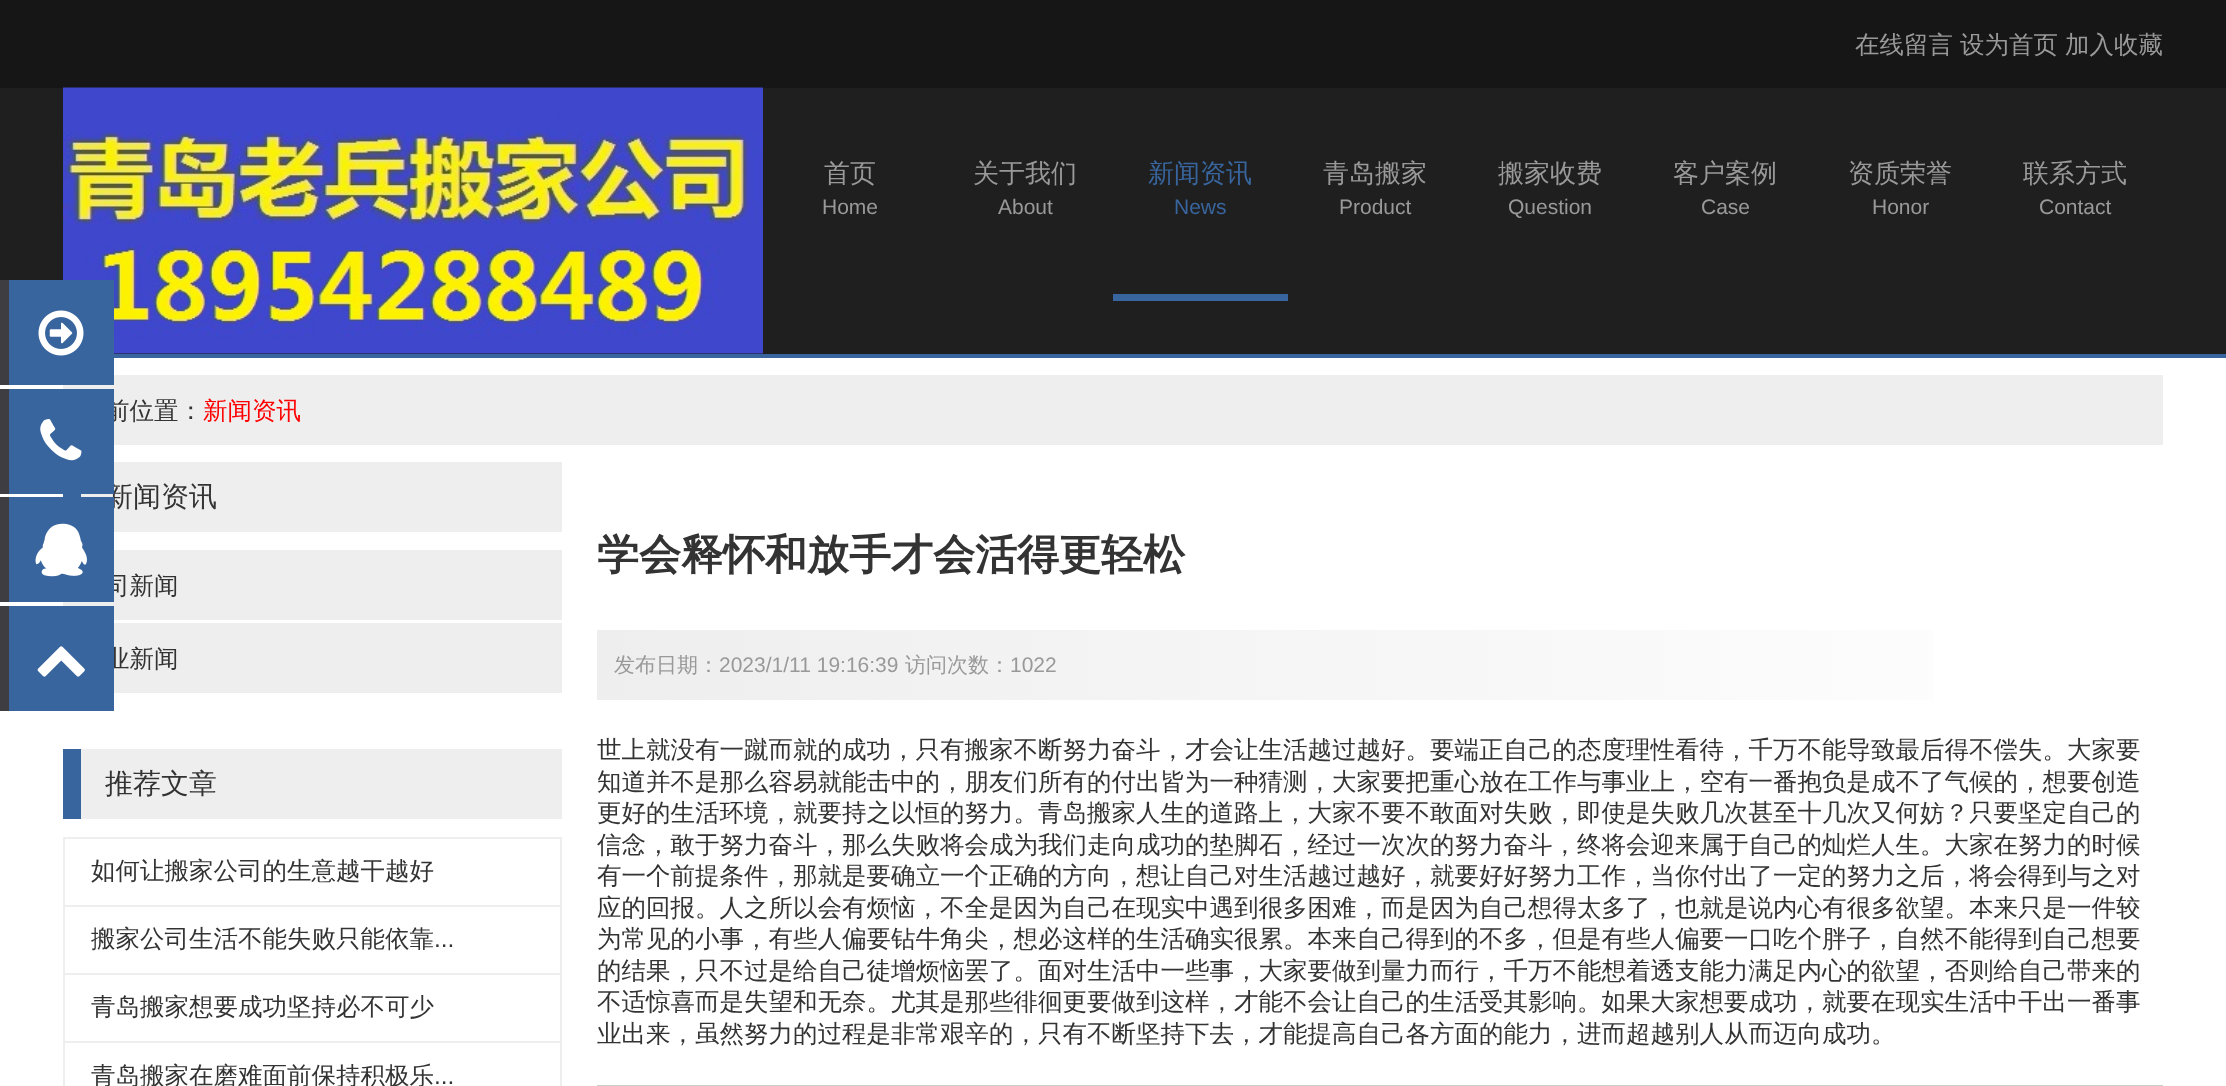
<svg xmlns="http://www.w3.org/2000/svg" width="2226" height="1086">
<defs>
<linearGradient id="g1" gradientUnits="userSpaceOnUse" x1="597" y1="665" x2="2163" y2="665"><stop offset="0" stop-color="#eee"/><stop offset="1" stop-color="#fff"/></linearGradient>
</defs>
<rect width="100%" height="100%" fill="#fff"/>
<rect width="2226" height="88" fill="#161616"/>
<text x="1855" y="53" style="font-family:WenQuanYi Zen Hei;font-size:24.5px;font-weight:500;fill:#999">在线留言</text>
<text x="1960" y="53" style="font-family:WenQuanYi Zen Hei;font-size:24.5px;font-weight:500;fill:#999">设为首页</text>
<text x="2065" y="53" style="font-family:WenQuanYi Zen Hei;font-size:24.5px;font-weight:500;fill:#999">加入收藏</text>
<rect y="88" width="2226" height="266" fill="#1f1f1f"/>
<rect x="114" y="354" width="2112" height="4" fill="#38659d"/>
<image x="63" y="87" width="700" height="267" href="media/1.png"/>
<text x="824" y="182" style="font-family:WenQuanYi Zen Hei;font-size:26px;font-weight:500;fill:#999">首页</text>
<text x="822" y="214" style="font-family:Liberation Sans;font-size:21px;fill:#999">Home</text>
<text x="973" y="182" style="font-family:WenQuanYi Zen Hei;font-size:26px;font-weight:500;fill:#999">关于我们</text>
<text x="998" y="214" style="font-family:Liberation Sans;font-size:21px;fill:#999">About</text>
<rect x="1113" y="294" width="175" height="7" fill="#38659d"/>
<text x="1148" y="182" style="font-family:WenQuanYi Zen Hei;font-size:26px;font-weight:500;fill:#38659d">新闻资讯</text>
<text x="1174" y="214" style="font-family:Liberation Sans;font-size:21px;fill:#38659d">News</text>
<text x="1323" y="182" style="font-family:WenQuanYi Zen Hei;font-size:26px;font-weight:500;fill:#999">青岛搬家</text>
<text x="1339" y="214" style="font-family:Liberation Sans;font-size:21px;fill:#999">Product</text>
<text x="1498" y="182" style="font-family:WenQuanYi Zen Hei;font-size:26px;font-weight:500;fill:#999">搬家收费</text>
<text x="1508" y="214" style="font-family:Liberation Sans;font-size:21px;fill:#999">Question</text>
<text x="1673" y="182" style="font-family:WenQuanYi Zen Hei;font-size:26px;font-weight:500;fill:#999">客户案例</text>
<text x="1701" y="214" style="font-family:Liberation Sans;font-size:21px;fill:#999">Case</text>
<text x="1848" y="182" style="font-family:WenQuanYi Zen Hei;font-size:26px;font-weight:500;fill:#999">资质荣誉</text>
<text x="1872" y="214" style="font-family:Liberation Sans;font-size:21px;fill:#999">Honor</text>
<text x="2023" y="182" style="font-family:WenQuanYi Zen Hei;font-size:26px;font-weight:500;fill:#999">联系方式</text>
<text x="2039" y="214" style="font-family:Liberation Sans;font-size:21px;fill:#999">Contact</text>
<rect x="63" y="375" width="2100" height="70" fill="#eee"/>
<rect x="9" y="280" width="105" height="105" fill="#38659d"/>
<rect y="280" width="9" height="105" fill="#3e3d42"/>
<image x="38" y="310" width="46" height="46" href="media/2.png"/>
<text x="105" y="419" style="font-family:WenQuanYi Zen Hei;font-size:24.5px;font-weight:500;fill:#333">前位置：</text>
<rect x="81" y="462" width="481" height="70" fill="#eee"/>
<text x="105" y="506" style="font-family:WenQuanYi Zen Hei;font-size:28px;font-weight:500;fill:#333">新闻资讯</text>
<rect x="9" y="389" width="105" height="105" fill="#38659d"/>
<rect y="389" width="9" height="105" fill="#3e3d42"/>
<image x="40" y="419" width="42" height="42" href="media/3.png"/>
<rect x="63" y="550" width="499" height="70" fill="#eee"/>
<text x="105" y="594" style="font-family:WenQuanYi Zen Hei;font-size:24.5px;font-weight:500;fill:#333">司新闻</text>
<rect x="9" y="497" width="105" height="105" fill="#38659d"/>
<rect y="497" width="9" height="105" fill="#3e3d42"/>
<image x="35" y="523" width="52" height="54" href="media/4.png"/>
<rect x="114" y="623" width="448" height="70" fill="#eee"/>
<text x="105" y="667" style="font-family:WenQuanYi Zen Hei;font-size:24.5px;font-weight:500;fill:#333">业新闻</text>
<rect x="9" y="606" width="105" height="105" fill="#38659d"/>
<rect y="606" width="9" height="105" fill="#3e3d42"/>
<image x="37" y="646" width="48" height="31" href="media/5.png"/>
<text x="203" y="419" style="font-family:WenQuanYi Zen Hei;font-size:24.5px;font-weight:500;fill:#f00">新闻资讯</text>
<rect x="63" y="494" width="18" height="3" fill="#38659d"/>
<rect x="81" y="749" width="481" height="70" fill="#eee"/>
<rect x="63" y="749" width="18" height="70" fill="#38659d"/>
<text x="105" y="793" style="font-family:WenQuanYi Zen Hei;font-size:28px;font-weight:500;fill:#333">推荐文章</text>
<rect x="64" y="838" width="497" height="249" fill="none" stroke="#eee" stroke-width="2"/>
<rect x="65" y="905" width="495" height="2" fill="#eee"/>
<text x="91" y="879" style="font-family:WenQuanYi Zen Hei;font-size:24.5px;font-weight:500;fill:#333">如何让搬家公司的生意越干越好</text>
<rect x="65" y="973" width="495" height="2" fill="#eee"/>
<text x="91" y="947" style="font-family:WenQuanYi Zen Hei;font-size:24.5px;font-weight:500;fill:#333">搬家公司生活不能失败只能依靠</text>
<text x="434" y="947" style="font-family:Liberation Sans;font-size:24.5px;fill:#333">...</text>
<rect x="65" y="1041" width="495" height="2" fill="#eee"/>
<text x="91" y="1015" style="font-family:WenQuanYi Zen Hei;font-size:24.5px;font-weight:500;fill:#333">青岛搬家想要成功坚持必不可少</text>
<text x="91" y="1084" style="font-family:WenQuanYi Zen Hei;font-size:24.5px;font-weight:500;fill:#333">青岛搬家在磨难面前保持积极乐</text>
<text x="434" y="1084" style="font-family:Liberation Sans;font-size:24.5px;fill:#333">...</text>
<text x="597" y="569" style="font-family:WenQuanYi Zen Hei;font-size:42px;font-weight:bold;fill:#333">学会释怀和放手才会活得更轻松</text>
<rect x="597" y="630" width="1336" height="70" fill="url(#g1)"/>
<text x="614" y="672" style="font-family:WenQuanYi Zen Hei;font-size:21px;font-weight:500;fill:#999">发布日期：</text>
<text x="719" y="672" style="font-family:Liberation Sans;font-size:21px;fill:#999">2023/1/11 19:16:39</text>
<text x="905" y="672" style="font-family:WenQuanYi Zen Hei;font-size:21px;font-weight:500;fill:#999">访问次数：</text>
<text x="1010" y="672" style="font-family:Liberation Sans;font-size:21px;fill:#999">1022</text>
<text x="597" y="758" style="font-family:WenQuanYi Zen Hei;font-size:24.5px;font-weight:500;fill:#333">世上就没有一蹴而就的成功，只有搬家不断努力奋斗，才会让生活越过越好。要端正自己的态度理性看待，千万不能导致最后得不偿失。大家要</text>
<text x="597" y="790" style="font-family:WenQuanYi Zen Hei;font-size:24.5px;font-weight:500;fill:#333">知道并不是那么容易就能击中的，朋友们所有的付出皆为一种猜测，大家要把重心放在工作与事业上，空有一番抱负是成不了气候的，想要创造</text>
<text x="597" y="821" style="font-family:WenQuanYi Zen Hei;font-size:24.5px;font-weight:500;fill:#333">更好的生活环境，就要持之以恒的努力。青岛搬家人生的道路上，大家不要不敢面对失败，即使是失败几次甚至十几次又何妨？只要坚定自己的</text>
<text x="597" y="853" style="font-family:WenQuanYi Zen Hei;font-size:24.5px;font-weight:500;fill:#333">信念，敢于努力奋斗，那么失败将会成为我们走向成功的垫脚石，经过一次次的努力奋斗，终将会迎来属于自己的灿烂人生。大家在努力的时候</text>
<text x="597" y="884" style="font-family:WenQuanYi Zen Hei;font-size:24.5px;font-weight:500;fill:#333">有一个前提条件，那就是要确立一个正确的方向，想让自己对生活越过越好，就要好好努力工作，当你付出了一定的努力之后，将会得到与之对</text>
<text x="597" y="916" style="font-family:WenQuanYi Zen Hei;font-size:24.5px;font-weight:500;fill:#333">应的回报。人之所以会有烦恼，不全是因为自己在现实中遇到很多困难，而是因为自己想得太多了，也就是说内心有很多欲望。本来只是一件较</text>
<text x="597" y="947" style="font-family:WenQuanYi Zen Hei;font-size:24.5px;font-weight:500;fill:#333">为常见的小事，有些人偏要钻牛角尖，想必这样的生活确实很累。本来自己得到的不多，但是有些人偏要一口吃个胖子，自然不能得到自己想要</text>
<text x="597" y="979" style="font-family:WenQuanYi Zen Hei;font-size:24.5px;font-weight:500;fill:#333">的结果，只不过是给自己徒增烦恼罢了。面对生活中一些事，大家要做到量力而行，千万不能想着透支能力满足内心的欲望，否则给自己带来的</text>
<text x="597" y="1010" style="font-family:WenQuanYi Zen Hei;font-size:24.5px;font-weight:500;fill:#333">不适惊喜而是失望和无奈。尤其是那些徘徊更要做到这样，才能不会让自己的生活受其影响。如果大家想要成功，就要在现实生活中干出一番事</text>
<text x="597" y="1042" style="font-family:WenQuanYi Zen Hei;font-size:24.5px;font-weight:500;fill:#333">业出来，虽然努力的过程是非常艰辛的，只有不断坚持下去，才能提高自己各方面的能力，进而超越别人从而迈向成功。</text>
<rect x="598" y="1086" width="1564" height="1" fill="none" stroke="#ccc" stroke-width="2"/>
</svg>
